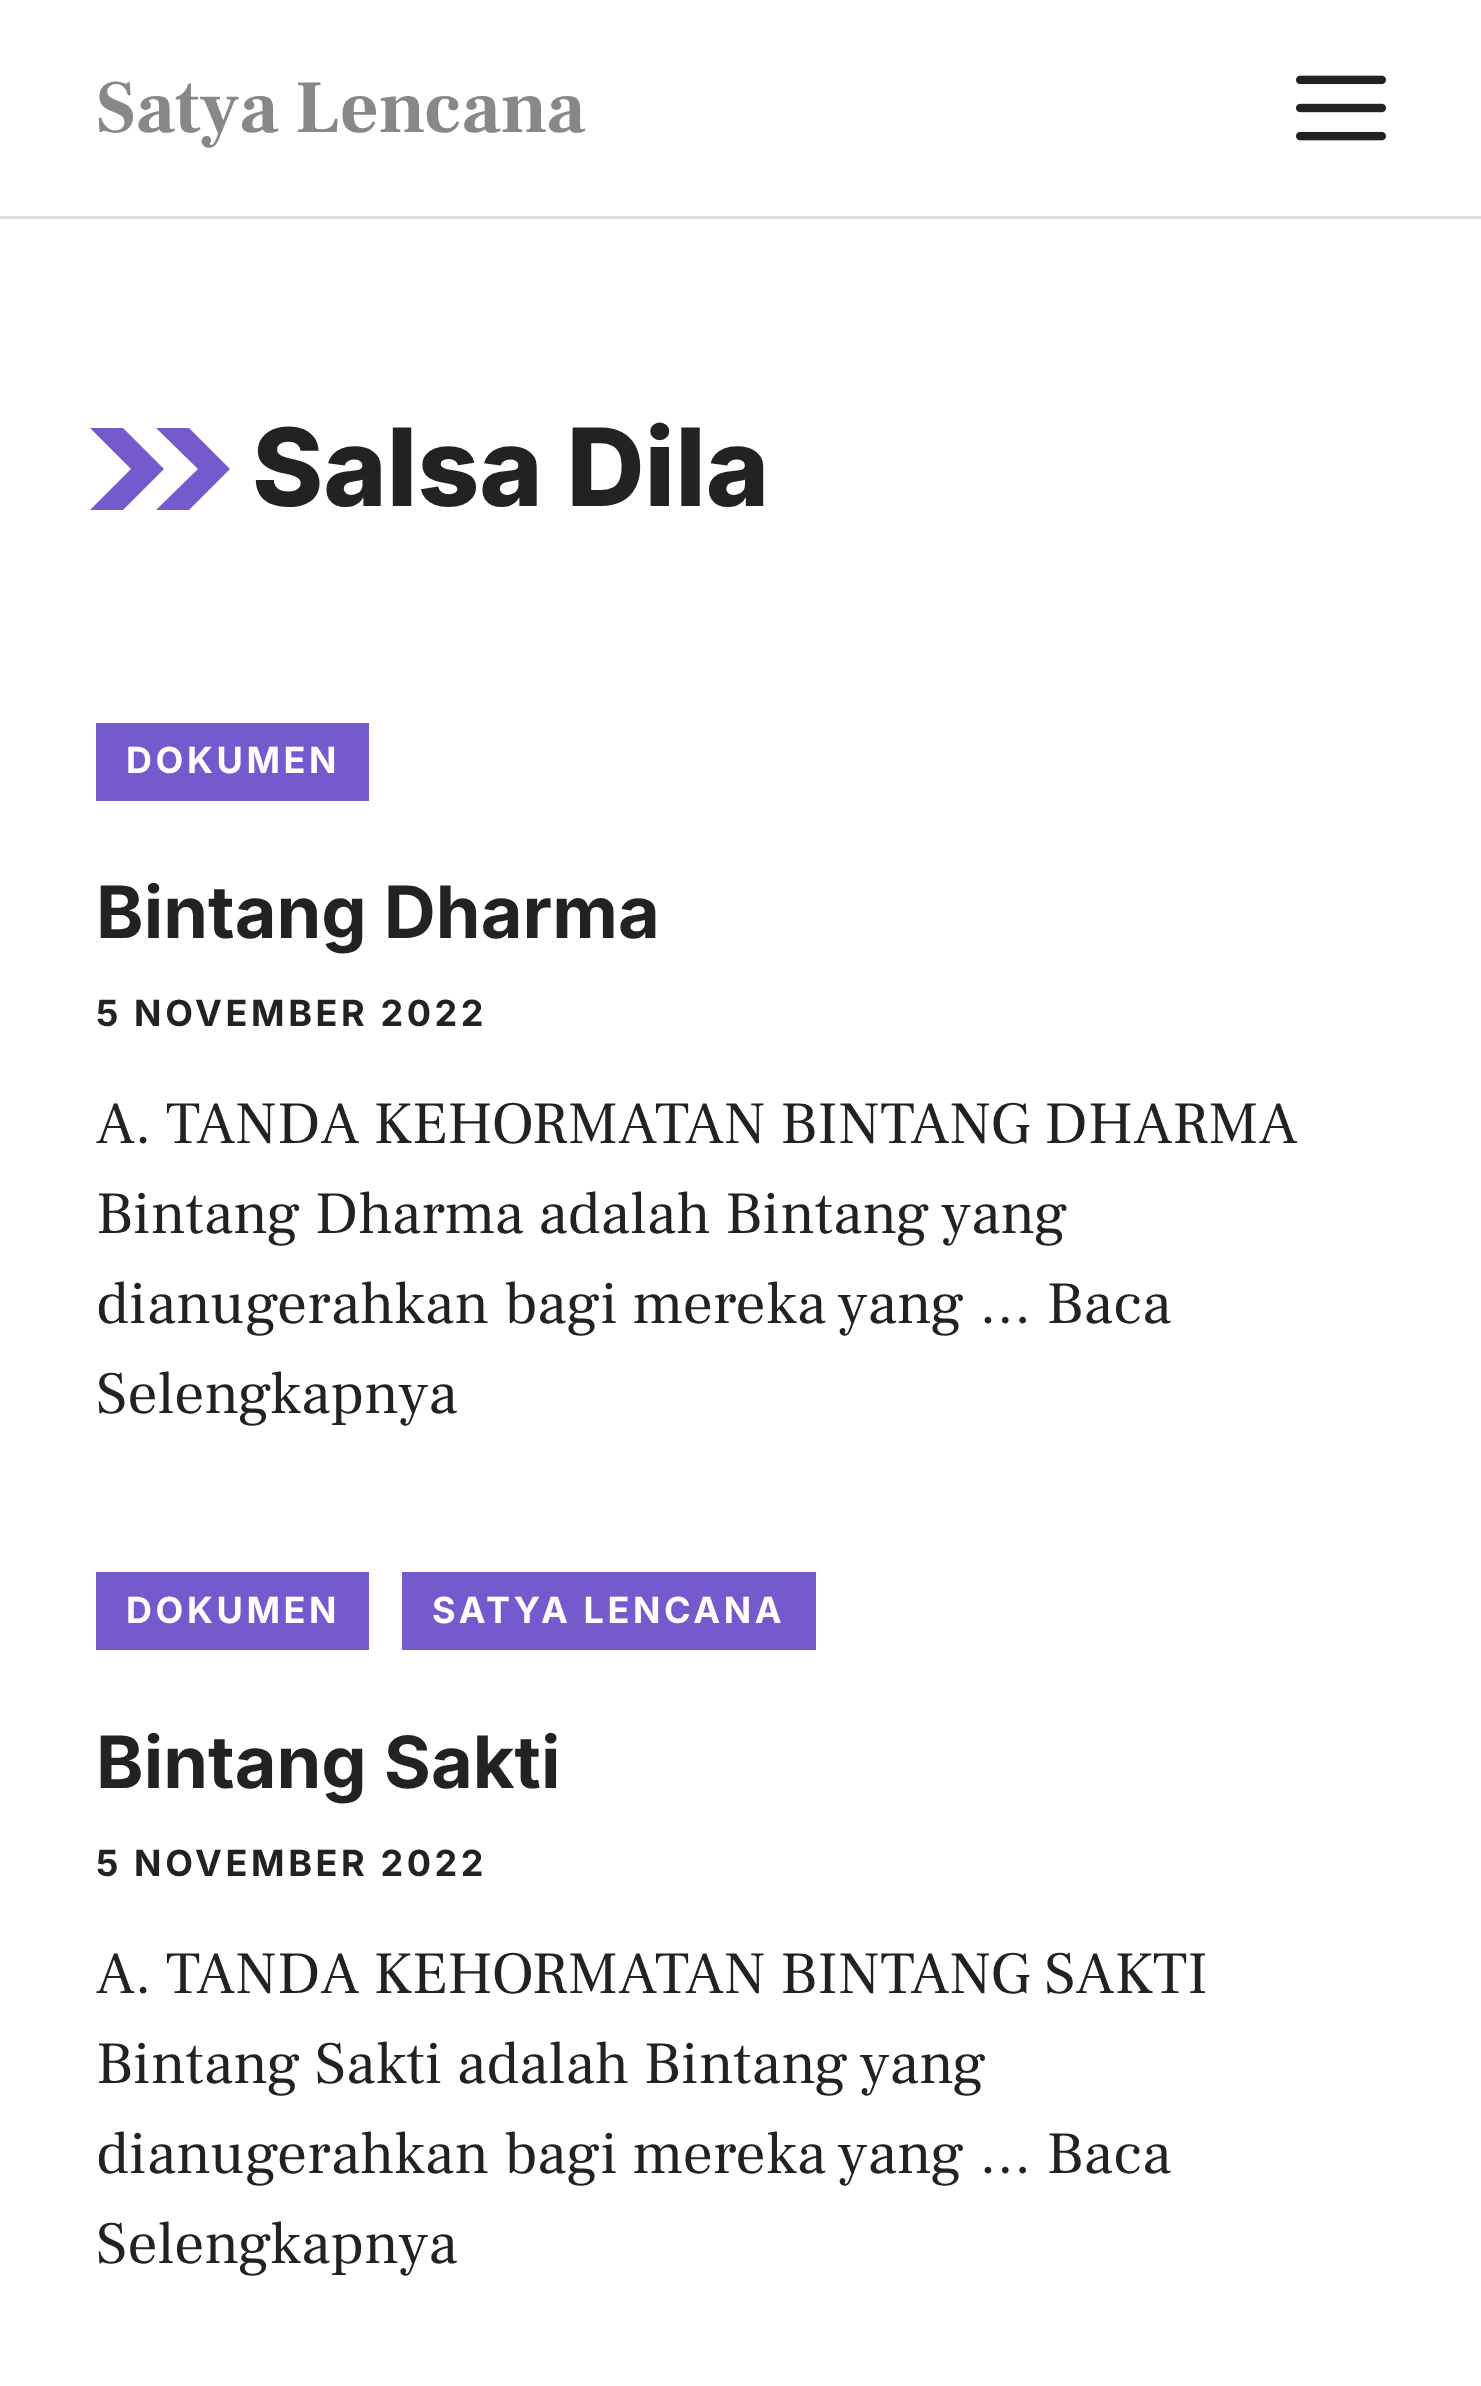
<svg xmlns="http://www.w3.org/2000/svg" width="1481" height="2386">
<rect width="100%" height="100%" fill="#fff"/>
<rect y="216" width="1481" height="3" fill="#ddd"/>
<text x="96" y="132" style="font-family:Frank Ruhl Libre;font-size:75px;font-weight:bold;fill:#888">Satya Lencana</text>
<image x="1296" y="75" width="90" height="66" href="media/1.png"/>
<path d="M198 469l-42 41h33l41-41l-41-41h-33z" fill="#745acc"/>
<path d="M131 469l-41 41h33l41-41l-41-41h-33z" fill="#745acc"/>
<text x="252" y="506" style="font-family:Inter;font-size:108px;font-weight:800;fill:#222">Salsa Dila</text>
<rect x="96" y="723" width="273" height="78" fill="#745acc"/>
<text x="126" y="773" style="font-family:Inter;font-size:36px;font-weight:bold;letter-spacing:3.6px;fill:#fff">DOKUMEN</text>
<text x="96" y="938" style="font-family:Inter;font-size:72px;font-weight:bold;fill:#222">Bintang Dharma</text>
<text x="96" y="1026" style="font-family:Inter;font-size:36px;font-weight:bold;letter-spacing:3.6px;fill:#222">5 NOVEMBER 2022</text>
<text x="96" y="1143" style="font-family:Frank Ruhl Libre;font-size:60px;fill:#222">A. TANDA KEHORMATAN BINTANG DHARMA</text>
<text x="96" y="1233" style="font-family:Frank Ruhl Libre;font-size:60px;fill:#222">Bintang Dharma adalah Bintang yang</text>
<text x="96" y="1323" style="font-family:Frank Ruhl Libre;font-size:60px;fill:#222">dianugerahkan bagi mereka yang … Baca</text>
<text x="96" y="1413" style="font-family:Frank Ruhl Libre;font-size:60px;fill:#222">Selengkapnya</text>
<rect x="96" y="1572" width="273" height="78" fill="#745acc"/>
<text x="126" y="1623" style="font-family:Inter;font-size:36px;font-weight:bold;letter-spacing:3.6px;fill:#fff">DOKUMEN</text>
<rect x="402" y="1572" width="414" height="78" fill="#745acc"/>
<text x="432" y="1623" style="font-family:Inter;font-size:36px;font-weight:bold;letter-spacing:3.6px;fill:#fff">SATYA LENCANA</text>
<text x="96" y="1788" style="font-family:Inter;font-size:72px;font-weight:bold;fill:#222">Bintang Sakti</text>
<text x="96" y="1876" style="font-family:Inter;font-size:36px;font-weight:bold;letter-spacing:3.6px;fill:#222">5 NOVEMBER 2022</text>
<text x="96" y="1993" style="font-family:Frank Ruhl Libre;font-size:60px;fill:#222">A. TANDA KEHORMATAN BINTANG SAKTI</text>
<text x="96" y="2083" style="font-family:Frank Ruhl Libre;font-size:60px;fill:#222">Bintang Sakti adalah Bintang yang</text>
<text x="96" y="2173" style="font-family:Frank Ruhl Libre;font-size:60px;fill:#222">dianugerahkan bagi mereka yang … Baca</text>
<text x="96" y="2263" style="font-family:Frank Ruhl Libre;font-size:60px;fill:#222">Selengkapnya</text>
</svg>
